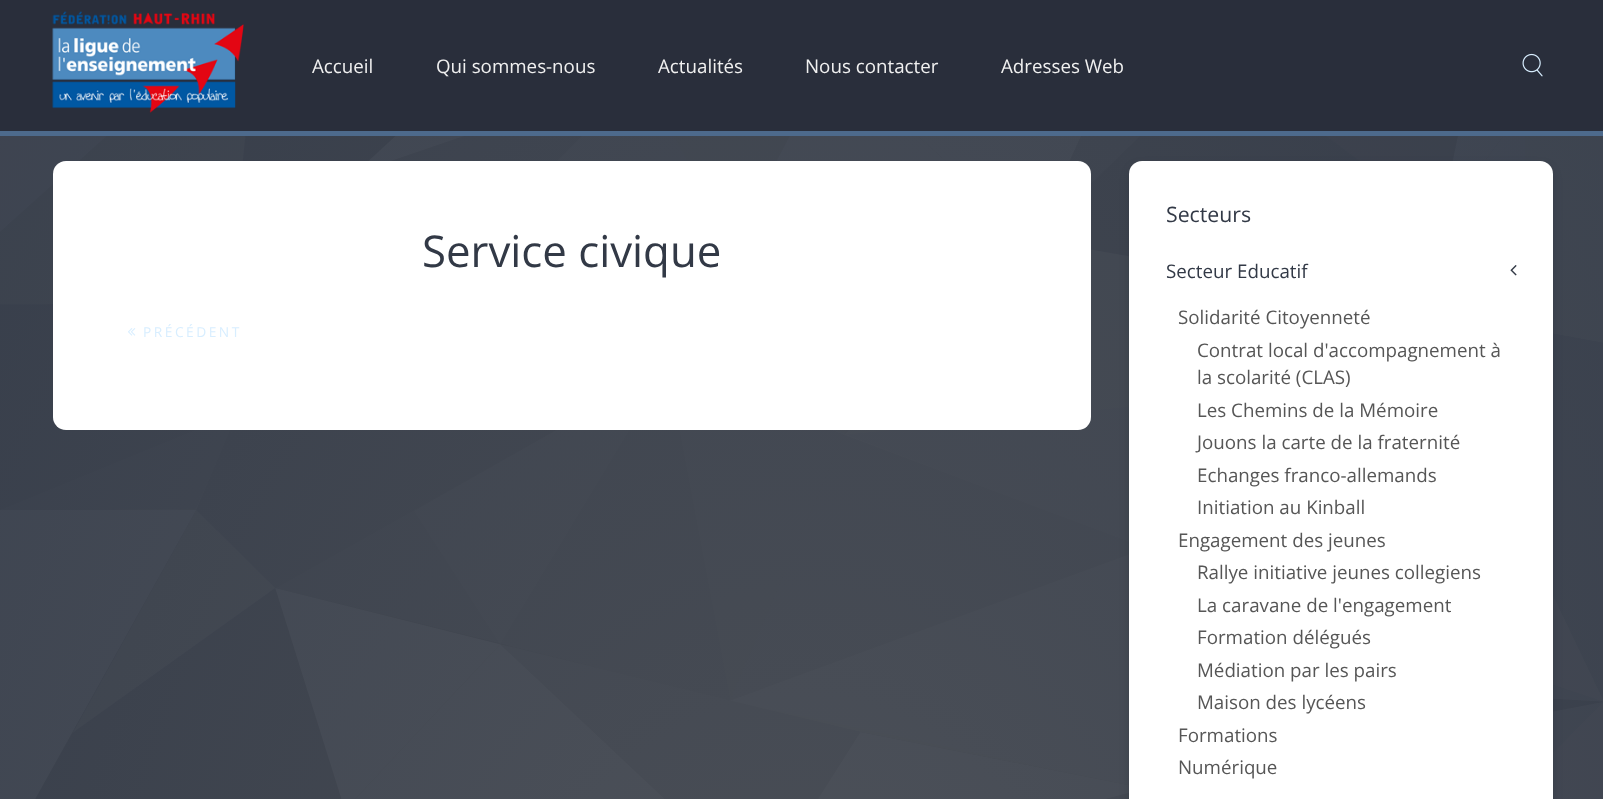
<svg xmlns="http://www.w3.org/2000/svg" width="1603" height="799">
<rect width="100%" height="100%" fill="#fff"/>
<image x="0" y="136" width="1603" height="663" href="media/1.png"/>
<rect width="1603" height="131" fill="#292e3b"/>
<rect y="131" width="1603" height="5" fill="#4d6a8c"/>
<image x="52" y="11" width="192" height="102" href="media/2.png"/>
<text x="312" y="73" style="font-family:Open Sans;font-size:18.75px;fill:#f0f0f0">Accueil</text>
<text x="436" y="73" style="font-family:Open Sans;font-size:18.75px;fill:#f0f0f0">Qui sommes-nous</text>
<text x="658" y="73" style="font-family:Open Sans;font-size:18.75px;fill:#f0f0f0">Actualités</text>
<text x="805" y="73" style="font-family:Open Sans;font-size:18.75px;fill:#f0f0f0">Nous contacter</text>
<text x="1001" y="73" style="font-family:Open Sans;font-size:18.75px;fill:#f0f0f0">Adresses Web</text>
<image x="1522" y="53" width="21" height="24" href="media/3.png"/>
<rect x="53" y="161" width="1038" height="269" rx="13" fill="#fff"/>
<text x="422" y="267" style="font-family:Open Sans;font-size:43.75px;fill:#323946">Service civique</text>
<image x="128" y="328" width="8" height="8" href="media/4.png"/>
<text x="143" y="337" style="font-family:Open Sans;font-size:13.75px;letter-spacing:2.5px;fill:#d8eeff">PRÉCÉDENT</text>
<rect x="1129" y="166" width="424" height="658" rx="13" fill="#252a344d" filter="blur(4px)"/>
<rect x="1129" y="161" width="424" height="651" rx="13" fill="#fff"/>
<text x="1166" y="222" style="font-family:Open Sans;font-size:21.25px;fill:#323946">Secteurs</text>
<text x="1166" y="278" style="font-family:Open Sans;font-size:18.75px;fill:#323946">Secteur Educatif</text>
<image x="1510" y="265" width="7" height="11" href="media/5.png"/>
<text x="1178" y="324" style="font-family:Open Sans;font-size:18.75px;fill:#565656">Solidarité Citoyenneté</text>
<text x="1197" y="357" style="font-family:Open Sans;font-size:18.75px;fill:#565656">Contrat local d'accompagnement à</text>
<text x="1197" y="384" style="font-family:Open Sans;font-size:18.75px;fill:#565656">la scolarité (CLAS)</text>
<text x="1197" y="417" style="font-family:Open Sans;font-size:18.75px;fill:#565656">Les Chemins de la Mémoire</text>
<text x="1197" y="449" style="font-family:Open Sans;font-size:18.75px;fill:#565656">Jouons la carte de la fraternité</text>
<text x="1197" y="482" style="font-family:Open Sans;font-size:18.75px;fill:#565656">Echanges franco-allemands</text>
<text x="1197" y="514" style="font-family:Open Sans;font-size:18.75px;fill:#565656">Initiation au Kinball</text>
<text x="1178" y="547" style="font-family:Open Sans;font-size:18.75px;fill:#565656">Engagement des jeunes</text>
<text x="1197" y="579" style="font-family:Open Sans;font-size:18.75px;fill:#565656">Rallye initiative jeunes collegiens</text>
<text x="1197" y="612" style="font-family:Open Sans;font-size:18.75px;fill:#565656">La caravane de l'engagement</text>
<text x="1197" y="644" style="font-family:Open Sans;font-size:18.75px;fill:#565656">Formation délégués</text>
<text x="1197" y="677" style="font-family:Open Sans;font-size:18.75px;fill:#565656">Médiation par les pairs</text>
<text x="1197" y="709" style="font-family:Open Sans;font-size:18.75px;fill:#565656">Maison des lycéens</text>
<text x="1178" y="742" style="font-family:Open Sans;font-size:18.75px;fill:#565656">Formations</text>
<text x="1178" y="774" style="font-family:Open Sans;font-size:18.75px;fill:#565656">Numérique</text>
</svg>
